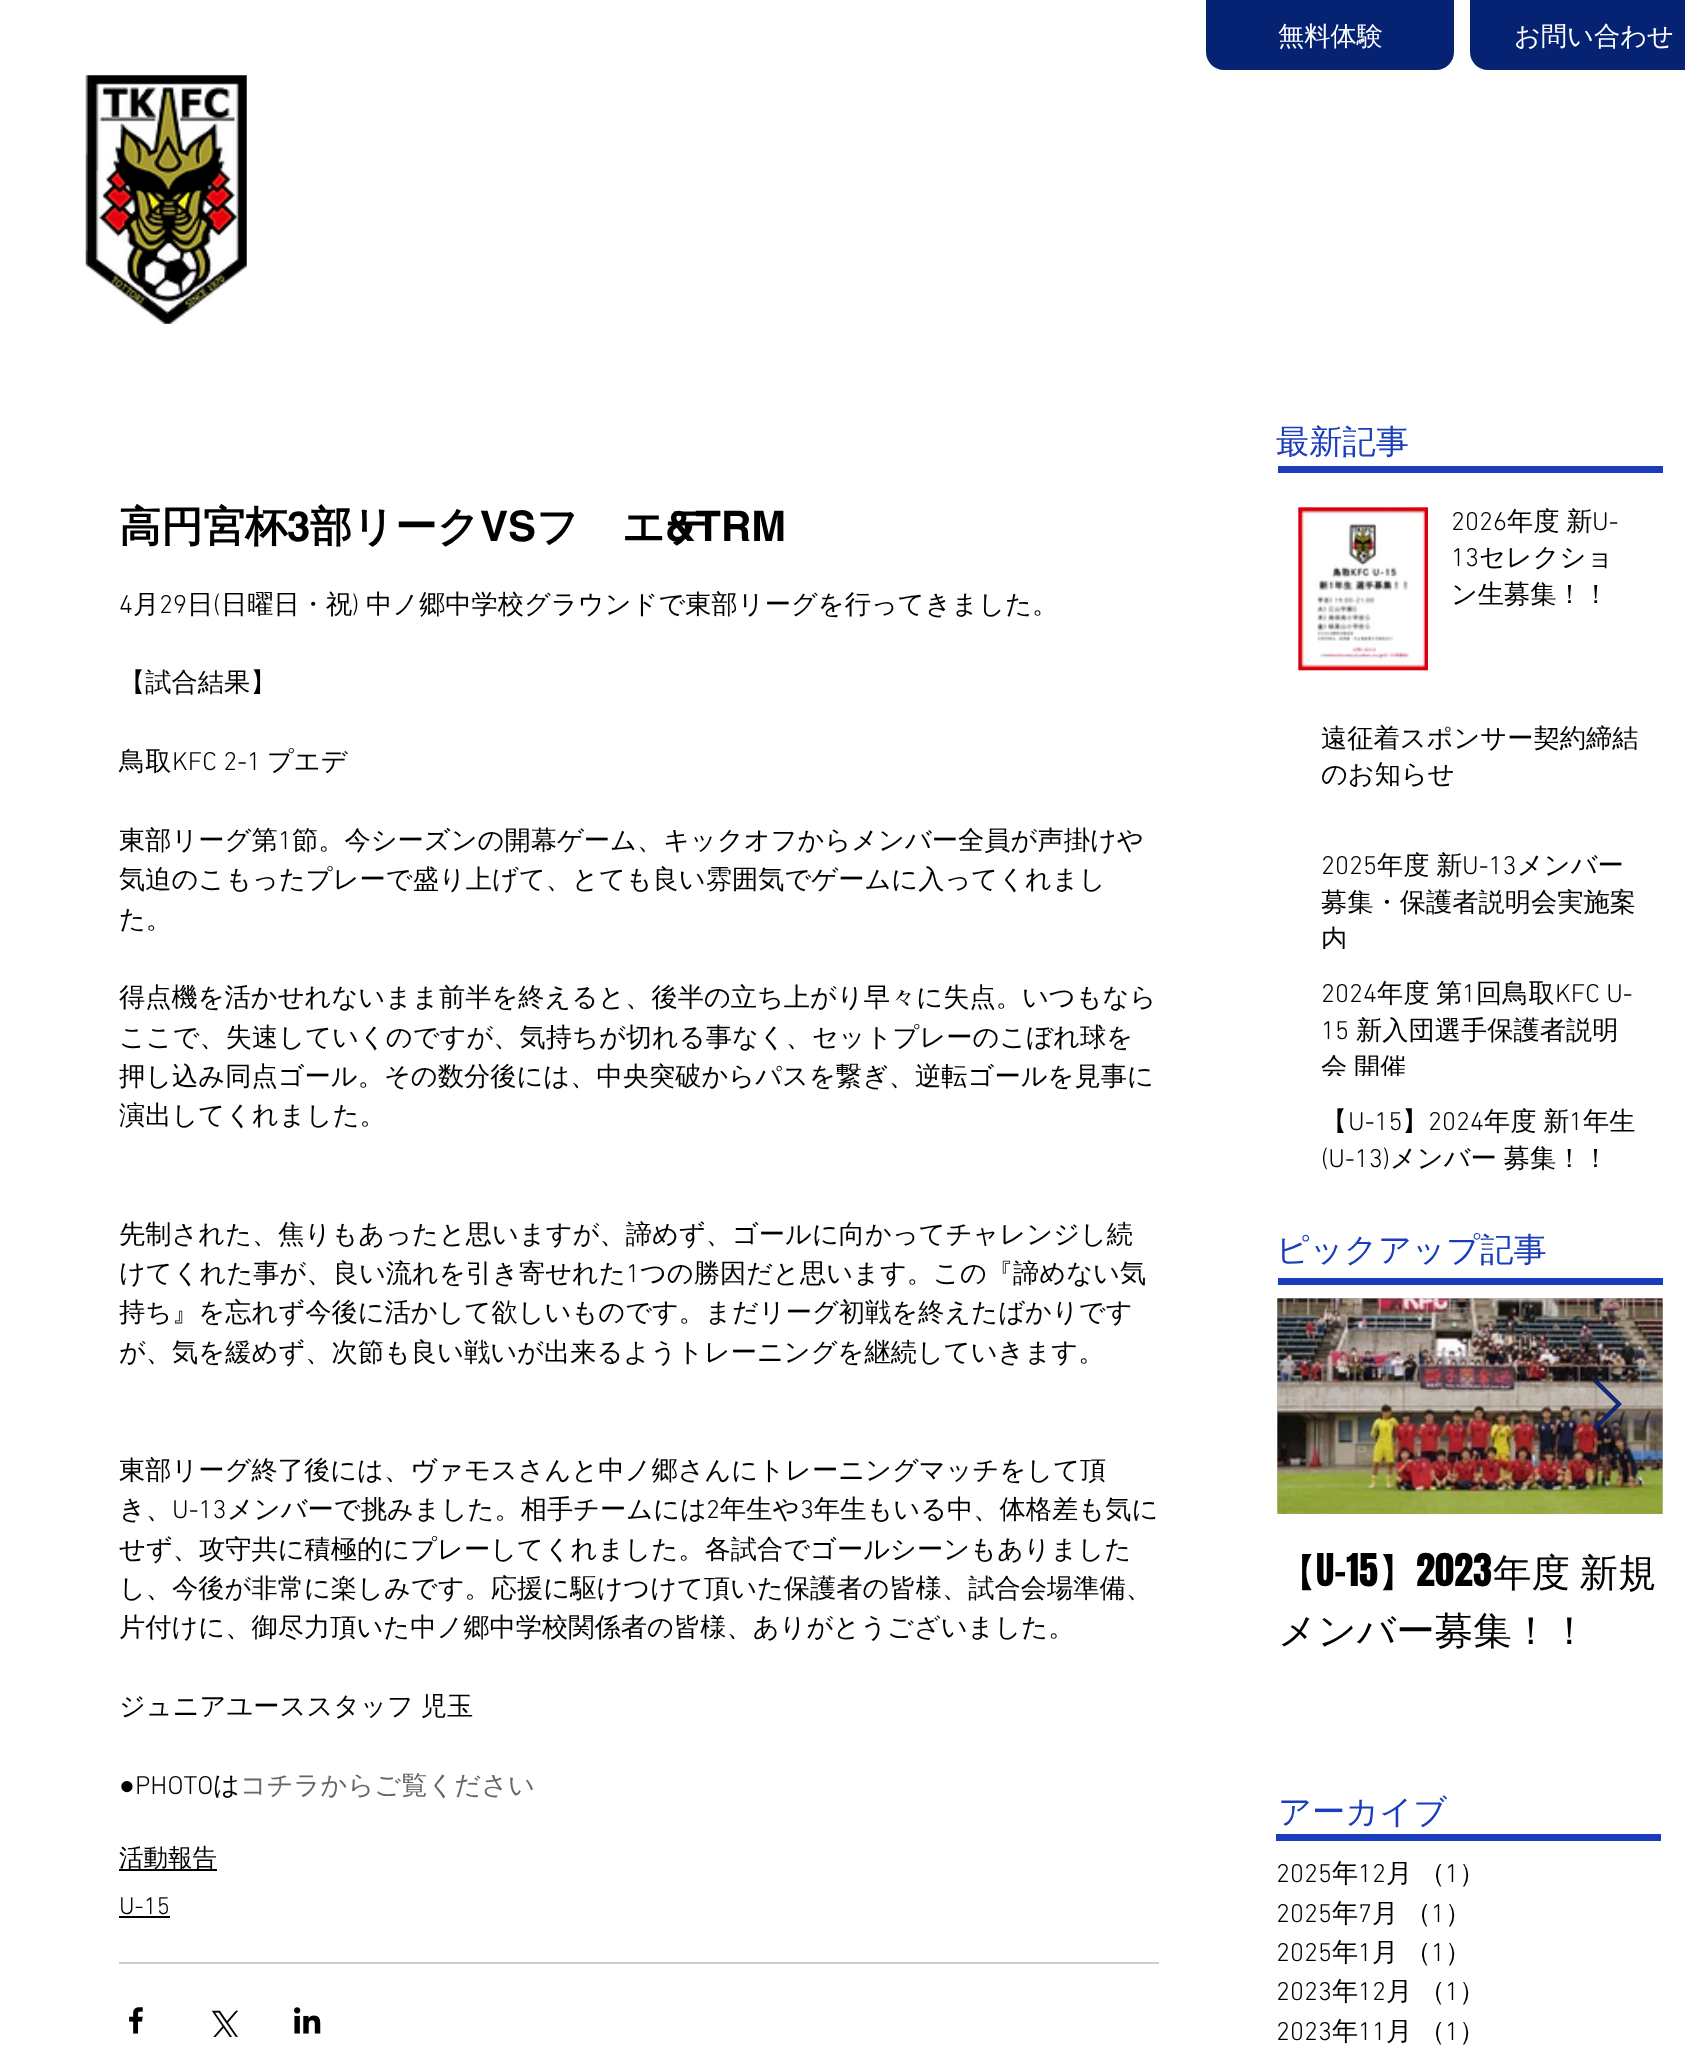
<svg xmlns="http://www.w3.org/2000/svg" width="1685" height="2053">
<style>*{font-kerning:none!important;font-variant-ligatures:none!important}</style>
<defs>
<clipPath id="clip1"><rect x="1321" y="851" width="319" height="98"/></clipPath>
<clipPath id="clip2"><rect x="1321" y="978" width="319" height="98"/></clipPath>
</defs>
<rect width="100%" height="100%" fill="#fff"/>
<path d="M1206 0h248v52c0 10-8 18-18 18h-212c-10 0-18-8-18-18z" fill="#062272"/>
<text x="1278" y="45" style="font-family:WenQuanYi Zen Hei;font-size:26.25px;font-weight:500;fill:#fff">無料体験</text>
<path d="M1470 0h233v52c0 10-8 18-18 18h-197c-10 0-18-8-18-18z" fill="#062272"/>
<text x="1514" y="45" style="font-family:WenQuanYi Zen Hei;font-size:26.25px;font-weight:500;fill:#fff">お問い合わせ</text>
<image x="85" y="75" width="162" height="249" href="media/1.png"/>
<text x="1276" y="453" style="font-family:WenQuanYi Zen Hei;font-size:33.25px;font-weight:500;fill:#1a3dbc">最新記事</text>
<image x="1298" y="507" width="130" height="164" href="media/2.png"/>
<image x="1298" y="507" width="130" height="164" href="media/3.png"/>
<text x="1451" y="530" style="font-family:'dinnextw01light';font-size:26.25px;font-weight:300;fill:#000">2026</text>
<text x="1507" y="530" word-spacing="-1" style="font-family:WenQuanYi Zen Hei;font-size:26.25px;font-weight:500;fill:#000">年度 新</text>
<text x="1592" y="530" style="font-family:'dinnextw01light';font-size:26.25px;font-weight:300;fill:#000">U-</text>
<text x="1451" y="566" style="font-family:'dinnextw01light';font-size:26.25px;font-weight:300;fill:#000">13</text>
<text x="1479" y="566" style="font-family:WenQuanYi Zen Hei;font-size:26.25px;font-weight:500;fill:#000">セレクショ</text>
<text x="1451" y="603" style="font-family:WenQuanYi Zen Hei;font-size:26.25px;font-weight:500;fill:#000">ン生募集！！</text>
<text x="1321" y="747" style="font-family:WenQuanYi Zen Hei;font-size:26.25px;font-weight:500;fill:#000">遠征着スポンサー契約締結</text>
<text x="1321" y="783" style="font-family:WenQuanYi Zen Hei;font-size:26.25px;font-weight:500;fill:#000">のお知らせ</text>
<text x="1321" y="874" style="font-family:'dinnextw01light';font-size:26.25px;font-weight:300;fill:#000">2025</text>
<text x="1377" y="874" word-spacing="-1" style="font-family:WenQuanYi Zen Hei;font-size:26.25px;font-weight:500;fill:#000">年度 新</text>
<text x="1462" y="874" style="font-family:'dinnextw01light';font-size:26.25px;font-weight:300;fill:#000">U-13</text>
<text x="1517" y="874" style="font-family:WenQuanYi Zen Hei;font-size:26.25px;font-weight:500;fill:#000">メンバー</text>
<text x="1321" y="911" style="font-family:WenQuanYi Zen Hei;font-size:26.25px;font-weight:500;fill:#000">募集・保護者説明会実施案</text>
<g clip-path="url(#clip1)">
<text x="1321" y="948" style="font-family:WenQuanYi Zen Hei;font-size:26.25px;font-weight:500;fill:#000">内</text>
</g>
<text x="1321" y="1002" style="font-family:'dinnextw01light';font-size:26.25px;font-weight:300;fill:#000">2024</text>
<text x="1377" y="1002" style="font-family:WenQuanYi Zen Hei;font-size:26.25px;font-weight:500;fill:#000">年度</text>
<text x="1436" y="1002" style="font-family:WenQuanYi Zen Hei;font-size:26.25px;font-weight:500;fill:#000">第</text>
<text x="1462" y="1002" style="font-family:'dinnextw01light';font-size:26.25px;font-weight:300;fill:#000">1</text>
<text x="1476" y="1002" style="font-family:WenQuanYi Zen Hei;font-size:26.25px;font-weight:500;fill:#000">回鳥取</text>
<text x="1555" y="1002" style="font-family:'dinnextw01light';font-size:26.25px;font-weight:300;fill:#000">KFC U-</text>
<text x="1321" y="1039" style="font-family:'dinnextw01light';font-size:26.25px;font-weight:300;fill:#000">15</text>
<text x="1356" y="1039" style="font-family:WenQuanYi Zen Hei;font-size:26.25px;font-weight:500;fill:#000">新入団選手保護者説明</text>
<g clip-path="url(#clip2)">
<text x="1321" y="1076" word-spacing="-1" style="font-family:WenQuanYi Zen Hei;font-size:26.25px;font-weight:500;fill:#000">会 開催</text>
</g>
<text x="1321" y="1130" style="font-family:WenQuanYi Zen Hei;font-size:26.25px;font-weight:500;fill:#000">【</text>
<text x="1348" y="1130" style="font-family:'dinnextw01light';font-size:26.25px;font-weight:300;fill:#000">U-15</text>
<text x="1402" y="1130" style="font-family:WenQuanYi Zen Hei;font-size:26.25px;font-weight:500;fill:#000">】</text>
<text x="1428" y="1130" style="font-family:'dinnextw01light';font-size:26.25px;font-weight:300;fill:#000">2024</text>
<text x="1484" y="1130" word-spacing="-1" style="font-family:WenQuanYi Zen Hei;font-size:26.25px;font-weight:500;fill:#000">年度 新</text>
<text x="1569" y="1130" style="font-family:'dinnextw01light';font-size:26.25px;font-weight:300;fill:#000">1</text>
<text x="1583" y="1130" style="font-family:WenQuanYi Zen Hei;font-size:26.25px;font-weight:500;fill:#000">年生</text>
<text x="1321" y="1167" style="font-family:'dinnextw01light';font-size:26.25px;font-weight:300;fill:#000">(U-13)</text>
<text x="1390" y="1167" word-spacing="-1" style="font-family:WenQuanYi Zen Hei;font-size:26.25px;font-weight:500;fill:#000">メンバー 募集！！</text>
<text x="1276" y="1261" style="font-family:WenQuanYi Zen Hei;font-size:33.25px;font-weight:500;fill:#1a3dbc">ピックアップ記事</text>
<rect x="1278" y="1278" width="385" height="7" fill="#1a3dbc"/>
<image x="1277" y="1298" width="386" height="216" href="media/4.png"/>
<image x="1277" y="1298" width="386" height="216" href="media/5.png"/>
<path d="M1594 1382l2-3l25 25l-25 25l-2-2l23-23z" fill="#062272e6"/>
<path d="M1594 1381.5l2-2l25 24.5l-25 25l-2-2l23-23z" fill="none" stroke="#062272e6" stroke-width="1.4"/>
<text x="1278" y="1586" style="font-family:WenQuanYi Zen Hei;font-size:38.5px;font-weight:500;fill:#000">【</text>
<text x="1316" y="1586" style="font-family:Anton;font-size:38.5px;fill:#000">U-15</text>
<text x="1378" y="1586" style="font-family:WenQuanYi Zen Hei;font-size:38.5px;font-weight:500;fill:#000">】</text>
<text x="1416" y="1586" style="font-family:Anton;font-size:38.5px;fill:#000">2023</text>
<text x="1493" y="1586" word-spacing="-2" style="font-family:WenQuanYi Zen Hei;font-size:38.5px;font-weight:500;fill:#000">年度 新規</text>
<text x="1278" y="1644" style="font-family:WenQuanYi Zen Hei;font-size:38.5px;font-weight:500;fill:#000">メンバー募集！！</text>
<text x="1278" y="1823" style="font-family:WenQuanYi Zen Hei;font-size:33.25px;font-weight:500;fill:#1a3dbc">アーカイブ</text>
<rect x="1276" y="1834" width="385" height="7" fill="#1a3dbc"/>
<text x="1276" y="1882" style="font-family:'dinnextw01light';font-size:26.25px;font-weight:300;fill:#000">2025</text>
<text x="1332" y="1882" style="font-family:WenQuanYi Zen Hei;font-size:26.25px;font-weight:500;fill:#000">年</text>
<text x="1358" y="1882" style="font-family:'dinnextw01light';font-size:26.25px;font-weight:300;fill:#000">12</text>
<text x="1386" y="1882" style="font-family:WenQuanYi Zen Hei;font-size:26.25px;font-weight:500;fill:#000">月</text>
<text x="1419" y="1882" style="font-family:WenQuanYi Zen Hei;font-size:26.25px;font-weight:500;fill:#000">（</text>
<text x="1445" y="1882" style="font-family:'dinnextw01light';font-size:26.25px;font-weight:300;fill:#000">1</text>
<text x="1459" y="1882" style="font-family:WenQuanYi Zen Hei;font-size:26.25px;font-weight:500;fill:#000">）</text>
<text x="1276" y="1922" style="font-family:'dinnextw01light';font-size:26.25px;font-weight:300;fill:#000">2025</text>
<text x="1332" y="1922" style="font-family:WenQuanYi Zen Hei;font-size:26.25px;font-weight:500;fill:#000">年</text>
<text x="1358" y="1922" style="font-family:'dinnextw01light';font-size:26.25px;font-weight:300;fill:#000">7</text>
<text x="1372" y="1922" style="font-family:WenQuanYi Zen Hei;font-size:26.25px;font-weight:500;fill:#000">月</text>
<text x="1405" y="1922" style="font-family:WenQuanYi Zen Hei;font-size:26.25px;font-weight:500;fill:#000">（</text>
<text x="1431" y="1922" style="font-family:'dinnextw01light';font-size:26.25px;font-weight:300;fill:#000">1</text>
<text x="1445" y="1922" style="font-family:WenQuanYi Zen Hei;font-size:26.25px;font-weight:500;fill:#000">）</text>
<text x="1276" y="1961" style="font-family:'dinnextw01light';font-size:26.25px;font-weight:300;fill:#000">2025</text>
<text x="1332" y="1961" style="font-family:WenQuanYi Zen Hei;font-size:26.25px;font-weight:500;fill:#000">年</text>
<text x="1358" y="1961" style="font-family:'dinnextw01light';font-size:26.25px;font-weight:300;fill:#000">1</text>
<text x="1372" y="1961" style="font-family:WenQuanYi Zen Hei;font-size:26.25px;font-weight:500;fill:#000">月</text>
<text x="1405" y="1961" style="font-family:WenQuanYi Zen Hei;font-size:26.25px;font-weight:500;fill:#000">（</text>
<text x="1431" y="1961" style="font-family:'dinnextw01light';font-size:26.25px;font-weight:300;fill:#000">1</text>
<text x="1445" y="1961" style="font-family:WenQuanYi Zen Hei;font-size:26.25px;font-weight:500;fill:#000">）</text>
<text x="1276" y="2000" style="font-family:'dinnextw01light';font-size:26.25px;font-weight:300;fill:#000">2023</text>
<text x="1332" y="2000" style="font-family:WenQuanYi Zen Hei;font-size:26.25px;font-weight:500;fill:#000">年</text>
<text x="1358" y="2000" style="font-family:'dinnextw01light';font-size:26.25px;font-weight:300;fill:#000">12</text>
<text x="1386" y="2000" style="font-family:WenQuanYi Zen Hei;font-size:26.25px;font-weight:500;fill:#000">月</text>
<text x="1419" y="2000" style="font-family:WenQuanYi Zen Hei;font-size:26.25px;font-weight:500;fill:#000">（</text>
<text x="1445" y="2000" style="font-family:'dinnextw01light';font-size:26.25px;font-weight:300;fill:#000">1</text>
<text x="1459" y="2000" style="font-family:WenQuanYi Zen Hei;font-size:26.25px;font-weight:500;fill:#000">）</text>
<text x="1276" y="2040" style="font-family:'dinnextw01light';font-size:26.25px;font-weight:300;fill:#000">2023</text>
<text x="1332" y="2040" style="font-family:WenQuanYi Zen Hei;font-size:26.25px;font-weight:500;fill:#000">年</text>
<text x="1358" y="2040" style="font-family:'dinnextw01light';font-size:26.25px;font-weight:300;fill:#000">11</text>
<text x="1386" y="2040" style="font-family:WenQuanYi Zen Hei;font-size:26.25px;font-weight:500;fill:#000">月</text>
<text x="1419" y="2040" style="font-family:WenQuanYi Zen Hei;font-size:26.25px;font-weight:500;fill:#000">（</text>
<text x="1445" y="2040" style="font-family:'dinnextw01light';font-size:26.25px;font-weight:300;fill:#000">1</text>
<text x="1459" y="2040" style="font-family:WenQuanYi Zen Hei;font-size:26.25px;font-weight:500;fill:#000">）</text>
<rect x="1278" y="466" width="385" height="7" fill="#1a3dbc"/>
<text x="119" y="541" style="font-family:WenQuanYi Zen Hei;font-size:42px;font-weight:bold;fill:#000">高円宮杯</text>
<text x="287" y="541" style="font-family:helvetica;font-size:42px;font-weight:bold;fill:#000">3</text>
<text x="310" y="541" style="font-family:WenQuanYi Zen Hei;font-size:42px;font-weight:bold;fill:#000">部リーグ</text>
<text x="480" y="541" style="font-family:helvetica;font-size:42px;font-weight:bold;fill:#000">VS</text>
<text x="536" y="541" style="font-family:WenQuanYi Zen Hei;font-size:42px;font-weight:bold;fill:#000">プエデ</text>
<text x="665" y="541" style="font-family:helvetica;font-size:42px;font-weight:bold;fill:#000">&amp;TRM</text>
<text x="119" y="613" style="font-family:'dinnextw01light';font-size:26.25px;font-weight:300;fill:#000">4</text>
<text x="133" y="613" style="font-family:WenQuanYi Zen Hei;font-size:26.25px;font-weight:500;fill:#000">月</text>
<text x="159" y="613" style="font-family:'dinnextw01light';font-size:26.25px;font-weight:300;fill:#000">29</text>
<text x="187" y="613" style="font-family:WenQuanYi Zen Hei;font-size:26.25px;font-weight:500;fill:#000">日</text>
<text x="213" y="613" style="font-family:'dinnextw01light';font-size:26.25px;font-weight:300;fill:#000">(</text>
<text x="221" y="613" style="font-family:WenQuanYi Zen Hei;font-size:26.25px;font-weight:500;fill:#000">日曜日・祝</text>
<text x="352" y="613" style="font-family:'dinnextw01light';font-size:26.25px;font-weight:300;fill:#000">)</text>
<text x="366" y="613" style="font-family:WenQuanYi Zen Hei;font-size:26.25px;font-weight:500;fill:#000">中ノ郷中学校グラウンドで東部リーグを行ってきました。</text>
<text x="119" y="691" style="font-family:WenQuanYi Zen Hei;font-size:26.25px;font-weight:500;fill:#000">【試合結果】</text>
<text x="119" y="770" style="font-family:WenQuanYi Zen Hei;font-size:26.25px;font-weight:500;fill:#000">鳥取</text>
<text x="172" y="770" style="font-family:'dinnextw01light';font-size:26.25px;font-weight:300;fill:#000">KFC 2-1</text>
<text x="267" y="770" style="font-family:WenQuanYi Zen Hei;font-size:26.25px;font-weight:500;fill:#000">プエデ</text>
<text x="119" y="849" style="font-family:WenQuanYi Zen Hei;font-size:26.25px;font-weight:500;fill:#000">東部リーグ第</text>
<text x="278" y="849" style="font-family:'dinnextw01light';font-size:26.25px;font-weight:300;fill:#000">1</text>
<text x="292" y="849" style="font-family:WenQuanYi Zen Hei;font-size:26.25px;font-weight:500;fill:#000">節。今シーズンの開幕ゲーム、キックオフからメンバー全員が声掛けや</text>
<text x="119" y="888" style="font-family:WenQuanYi Zen Hei;font-size:26.25px;font-weight:500;fill:#000">気迫のこもったプレーで盛り上げて、とても良い雰囲気でゲームに入ってくれまし</text>
<text x="119" y="928" style="font-family:WenQuanYi Zen Hei;font-size:26.25px;font-weight:500;fill:#000">た。</text>
<text x="119" y="1006" style="font-family:WenQuanYi Zen Hei;font-size:26.25px;font-weight:500;fill:#000">得点機を活かせれないまま前半を終えると、後半の立ち上がり早々に失点。いつもなら</text>
<text x="119" y="1046" style="font-family:WenQuanYi Zen Hei;font-size:26.25px;font-weight:500;fill:#000">ここで、失速していくのですが、気持ちが切れる事なく、セットプレーのこぼれ球を</text>
<text x="119" y="1085" style="font-family:WenQuanYi Zen Hei;font-size:26.25px;font-weight:500;fill:#000">押し込み同点ゴール。その数分後には、中央突破からパスを繋ぎ、逆転ゴールを見事に</text>
<text x="119" y="1124" style="font-family:WenQuanYi Zen Hei;font-size:26.25px;font-weight:500;fill:#000">演出してくれました。</text>
<text x="119" y="1243" style="font-family:WenQuanYi Zen Hei;font-size:26.25px;font-weight:500;fill:#000">先制された、焦りもあったと思いますが、諦めず、ゴールに向かってチャレンジし続</text>
<text x="119" y="1282" style="font-family:WenQuanYi Zen Hei;font-size:26.25px;font-weight:500;fill:#000">けてくれた事が、良い流れを引き寄せれた</text>
<text x="626" y="1282" style="font-family:'dinnextw01light';font-size:26.25px;font-weight:300;fill:#000">1</text>
<text x="640" y="1282" style="font-family:WenQuanYi Zen Hei;font-size:26.25px;font-weight:500;fill:#000">つの勝因だと思います。この『諦めない気</text>
<text x="119" y="1321" style="font-family:WenQuanYi Zen Hei;font-size:26.25px;font-weight:500;fill:#000">持ち』を忘れず今後に活かして欲しいものです。まだリーグ初戦を終えたばかりです</text>
<text x="119" y="1361" style="font-family:WenQuanYi Zen Hei;font-size:26.25px;font-weight:500;fill:#000">が、気を緩めず、次節も良い戦いが出来るようトレーニングを継続していきます。</text>
<text x="119" y="1479" style="font-family:WenQuanYi Zen Hei;font-size:26.25px;font-weight:500;fill:#000">東部リーグ終了後には、ヴァモスさんと中ノ郷さんにトレーニングマッチをして頂</text>
<text x="119" y="1518" style="font-family:WenQuanYi Zen Hei;font-size:26.25px;font-weight:500;fill:#000">き、</text>
<text x="172" y="1518" style="font-family:'dinnextw01light';font-size:26.25px;font-weight:300;fill:#000">U-13</text>
<text x="227" y="1518" style="font-family:WenQuanYi Zen Hei;font-size:26.25px;font-weight:500;fill:#000">メンバーで挑みました。相手チームには</text>
<text x="706" y="1518" style="font-family:'dinnextw01light';font-size:26.25px;font-weight:300;fill:#000">2</text>
<text x="720" y="1518" style="font-family:WenQuanYi Zen Hei;font-size:26.25px;font-weight:500;fill:#000">年生や</text>
<text x="800" y="1518" style="font-family:'dinnextw01light';font-size:26.25px;font-weight:300;fill:#000">3</text>
<text x="814" y="1518" style="font-family:WenQuanYi Zen Hei;font-size:26.25px;font-weight:500;fill:#000">年生もいる中、体格差も気に</text>
<text x="119" y="1558" style="font-family:WenQuanYi Zen Hei;font-size:26.25px;font-weight:500;fill:#000">せず、攻守共に積極的にプレーしてくれました。各試合でゴールシーンもありました</text>
<text x="119" y="1597" style="font-family:WenQuanYi Zen Hei;font-size:26.25px;font-weight:500;fill:#000">し、今後が非常に楽しみです。応援に駆けつけて頂いた保護者の皆様、試合会場準備、</text>
<text x="119" y="1636" style="font-family:WenQuanYi Zen Hei;font-size:26.25px;font-weight:500;fill:#000">片付けに、御尽力頂いた中ノ郷中学校関係者の皆様、ありがとうございました。</text>
<text x="119" y="1715" word-spacing="-1" style="font-family:WenQuanYi Zen Hei;font-size:26.25px;font-weight:500;fill:#000">ジュニアユーススタッフ 児玉</text>
<text x="119" y="1794" style="font-family:Liberation Sans;font-size:26.25px;fill:#000">●</text>
<text x="135" y="1794" style="font-family:'dinnextw01light';font-size:26.25px;font-weight:300;fill:#000">PHOTO</text>
<text x="213" y="1794" style="font-family:WenQuanYi Zen Hei;font-size:26.25px;font-weight:500;fill:#000">は</text>
<text x="240" y="1794" style="font-family:WenQuanYi Zen Hei;font-size:26.25px;font-weight:500;fill:#666">コチラからご覧ください</text>
<rect x="119" y="1869" width="98" height="2" fill="#000"/>
<text x="119" y="1866" style="font-family:WenQuanYi Zen Hei;font-size:24.5px;font-weight:500;fill:#000">活動報告</text>
<text x="119" y="1914" style="font-family:'dinnextw01light';font-size:24.5px;font-weight:300;fill:#000">U-15</text>
<rect x="119" y="1916" width="51" height="2" fill="#000"/>
<rect x="119" y="1962" width="1040" height="2" fill="#ccc"/>
<image x="129" y="2007" width="14" height="27" href="media/6.png"/>
<image x="211" y="2010" width="27" height="27" href="media/7.png"/>
<image x="294" y="2007" width="27" height="27" href="media/8.png"/>
</svg>
